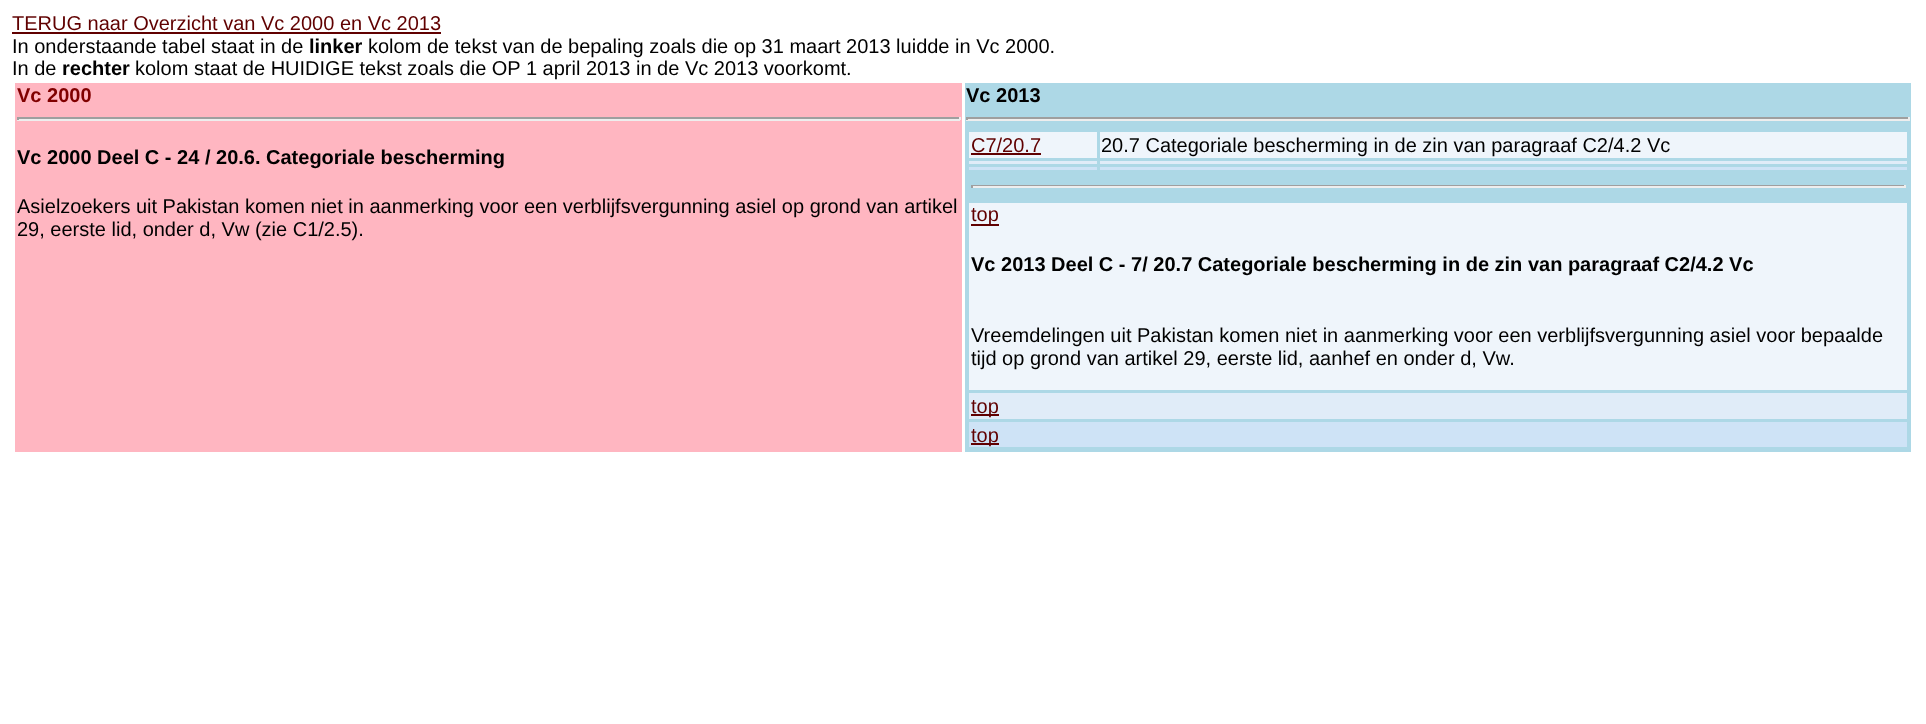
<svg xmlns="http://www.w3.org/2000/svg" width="1926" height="724">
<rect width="100%" height="100%" fill="#fff"/>
<text x="12" y="30" style="font-family:Liberation Sans;font-size:20px;fill:#600000">TERUG naar Overzicht van Vc 2000 en Vc 2013</text>
<rect x="12" y="32" width="429" height="2" fill="#600000"/>
<text x="12" y="53" style="font-family:Liberation Sans;font-size:20px;fill:#000">In onderstaande tabel staat in de</text>
<text x="309" y="53" style="font-family:Liberation Sans;font-size:20px;font-weight:bold;fill:#000">linker</text>
<text x="368" y="53" style="font-family:Liberation Sans;font-size:20px;fill:#000">kolom de tekst van de bepaling zoals die op 31 maart 2013 luidde in Vc 2000.</text>
<text x="12" y="75" style="font-family:Liberation Sans;font-size:20px;fill:#000">In de</text>
<text x="62" y="75" style="font-family:Liberation Sans;font-size:20px;font-weight:bold;fill:#000">rechter</text>
<text x="135" y="75" style="font-family:Liberation Sans;font-size:20px;fill:#000">kolom staat de HUIDIGE tekst zoals die OP 1 april 2013 in de Vc 2013 voorkomt.</text>
<rect x="15" y="83" width="947" height="369" fill="#ffb6c1"/>
<text x="17" y="102" style="font-family:Liberation Sans;font-size:20px;font-weight:bold;fill:#800000">Vc 2000</text>
<rect x="17" y="117" width="943" height="2" fill="#9f9f9f"/>
<rect x="959" y="117" width="2" height="3" fill="#eee"/>
<rect x="17" y="119" width="943" height="2" fill="#eee"/>
<rect x="17" y="117" width="2" height="3" fill="#9f9f9f"/>
<text x="17" y="164" style="font-family:Liberation Sans;font-size:20px;font-weight:bold;fill:#000">Vc 2000 Deel C - 24 / 20.6. Categoriale bescherming</text>
<text x="17" y="213" style="font-family:Liberation Sans;font-size:20px;fill:#000">Asielzoekers uit Pakistan komen niet in aanmerking voor een verblijfsvergunning asiel op grond van artikel</text>
<text x="17" y="236" style="font-family:Liberation Sans;font-size:20px;fill:#000">29, eerste lid, onder d, Vw (zie C1/2.5).</text>
<rect x="965" y="83" width="946" height="369" fill="#add8e6"/>
<text x="966" y="102" style="font-family:Liberation Sans;font-size:20px;font-weight:bold;fill:#000">Vc 2013</text>
<rect x="966" y="117" width="944" height="2" fill="#9f9f9f"/>
<rect x="1908" y="117" width="2" height="3" fill="#eee"/>
<rect x="966" y="119" width="944" height="2" fill="#eee"/>
<rect x="966" y="117" width="2" height="3" fill="#9f9f9f"/>
<rect x="969" y="132" width="128" height="26" fill="#eff5fb"/>
<text x="971" y="152" style="font-family:Liberation Sans;font-size:20px;fill:#600000">C7/20.7</text>
<rect x="971" y="153" width="70" height="2" fill="#600000"/>
<rect x="1100" y="132" width="807" height="26" fill="#eff5fb"/>
<text x="1101" y="152" style="font-family:Liberation Sans;font-size:20px;fill:#000">20.7 Categoriale bescherming in de zin van paragraaf C2/4.2 Vc</text>
<rect x="969" y="161" width="128" height="3" fill="#e0ecf8"/>
<rect x="1100" y="161" width="807" height="3" fill="#e0ecf8"/>
<rect x="969" y="167" width="128" height="3" fill="#cee3f6"/>
<rect x="1100" y="167" width="807" height="3" fill="#cee3f6"/>
<rect x="971" y="185" width="934" height="1" fill="#9f9f9f"/>
<rect x="1904" y="185" width="2" height="3" fill="#eee"/>
<rect x="971" y="186" width="934" height="2" fill="#eee"/>
<rect x="971" y="185" width="2" height="3" fill="#9f9f9f"/>
<rect x="969" y="203" width="938" height="187" fill="#eff5fb"/>
<rect x="971" y="224" width="28" height="2" fill="#600000"/>
<text x="971" y="221" style="font-family:Liberation Sans;font-size:20px;fill:#600000">top</text>
<text x="971" y="271" style="font-family:Liberation Sans;font-size:20px;font-weight:bold;fill:#000">Vc 2013 Deel C - 7/ 20.7 Categoriale bescherming in de zin van paragraaf C2/4.2 Vc</text>
<text x="971" y="342" style="font-family:Liberation Sans;font-size:20px;fill:#000">Vreemdelingen uit Pakistan komen niet in aanmerking voor een verblijfsvergunning asiel voor bepaalde</text>
<text x="971" y="365" style="font-family:Liberation Sans;font-size:20px;fill:#000">tijd op grond van artikel 29, eerste lid, aanhef en onder d, Vw.</text>
<rect x="969" y="393" width="938" height="26" fill="#e0ecf8"/>
<rect x="971" y="414" width="28" height="2" fill="#600000"/>
<text x="971" y="413" style="font-family:Liberation Sans;font-size:20px;fill:#600000">top</text>
<rect x="969" y="422" width="938" height="25" fill="#cee3f6"/>
<rect x="971" y="443" width="28" height="2" fill="#600000"/>
<text x="971" y="442" style="font-family:Liberation Sans;font-size:20px;fill:#600000">top</text>
</svg>
